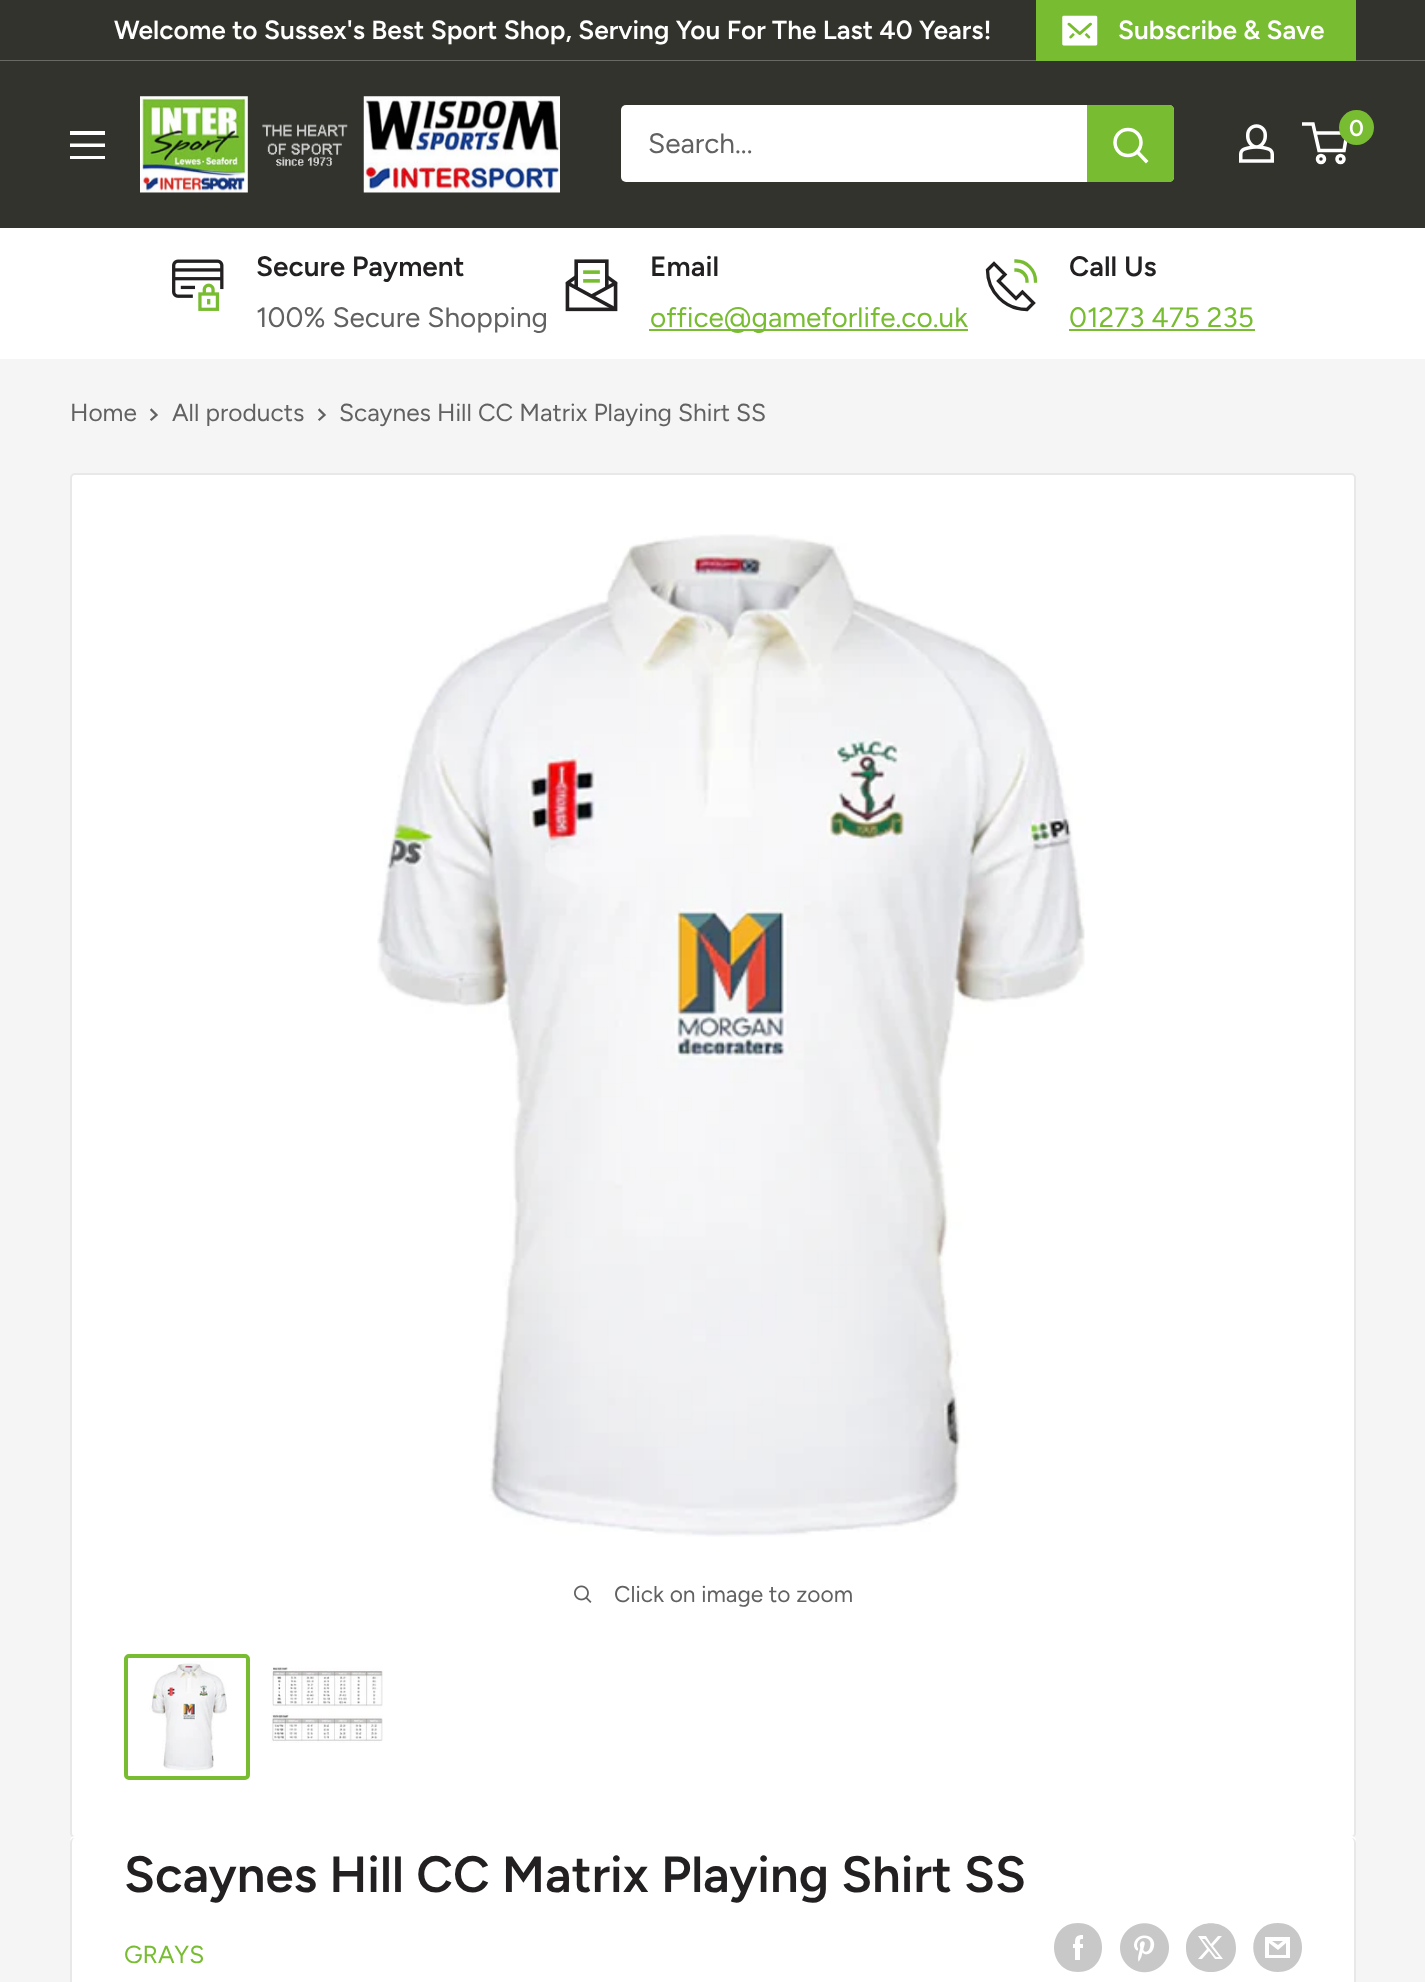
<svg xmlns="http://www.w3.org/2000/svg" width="1425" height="1982">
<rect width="100%" height="100%" fill="#f5f5f5"/>
<rect width="1425" height="60" fill="#32332d"/>
<rect y="60" width="1425" height="1" fill="#696965"/>
<text x="114" y="39" style="font-family:Figtree;font-size:26.25px;font-weight:600;fill:#fff">Welcome to Sussex's Best Sport Shop, Serving You For The Last 40 Years!</text>
<rect x="1036" width="320" height="61" fill="#78bc31"/>
<image x="1062" y="15" width="36" height="31" href="media/1.png"/>
<text x="1118" y="39" style="font-family:Figtree;font-size:26.25px;font-weight:600;fill:#fff">Subscribe &amp; Save</text>
<rect y="61" width="1425" height="167" fill="#32332d"/>
<image x="140" y="96" width="420" height="97" href="media/2.png"/>
<image x="1239" y="124" width="35" height="39" href="media/3.png"/>
<circle cx="1321" cy="159" r="3.5" fill="none" stroke="#fff" stroke-width="3.5"/>
<circle cx="1340.5" cy="159" r="3.5" fill="none" stroke="#fff" stroke-width="3.5"/>
<path d="M1315 133h32l-3 17.5h-25l-6-26.5h-11" fill="none" stroke="#fff" stroke-width="3.5"/>
<circle cx="1356.5" cy="127.5" r="17.5" fill="#78bc31"/>
<text x="1349" y="136" style="font-family:Figtree;font-size:23px;font-weight:600;fill:#fff">0</text>
<path d="M70 156h35v3h-35zm0-25h35v4h-35zm0 12.5h35v3.5h-35z" fill="#fff" fill-rule="evenodd"/>
<rect x="621" y="105" width="553" height="77" rx="5" fill="#fff"/>
<text x="648" y="153" style="font-family:Figtree;font-size:28px;fill:#616161">Search...</text>
<path d="M1087 105h82c3 0 5 2 5 5v67c0 3-2 5-5 5h-82z" fill="#78bc31"/>
<path d="M1146 161l-8.5-9" fill="none" stroke="#fff" stroke-width="3.5" stroke-linecap="square"/>
<circle cx="1128" cy="142.5" r="13" fill="none" stroke="#fff" stroke-width="3.5"/>
<rect y="228" width="1425" height="131" fill="#fff"/>
<image x="172" y="259" width="52" height="52" href="media/4.png"/>
<text x="256" y="276" style="font-family:Figtree;font-size:28px;font-weight:600;fill:#222021">Secure Payment</text>
<text x="256" y="327" style="font-family:Figtree;font-size:28px;fill:#616161">100% Secure Shopping</text>
<image x="565" y="259" width="53" height="53" href="media/5.png"/>
<text x="650" y="276" style="font-family:Figtree;font-size:28px;font-weight:600;fill:#222021">Email</text>
<rect x="649" y="329" width="319" height="2" fill="#78bc31"/>
<text x="650" y="327" style="font-family:Figtree;font-size:28px;fill:#78bc31">office@gameforlife.co.uk</text>
<path d="M1022.5 292l-6.5 6.5l-17.5-17.5l6.5-6.5l-11-11l-6.5 6.5c0 21.5 17.5 39.5 39.5 39.5l6.5-6.5z" fill="none" stroke="#222021" stroke-width="3.3" stroke-linecap="square"/>
<path d="M1016 261c10.5 0 19.5 9 19.5 20m-19.5-11c6 0 11 5 11 11" fill="none" stroke="#78bc31" stroke-width="3.3" stroke-linecap="square"/>
<text x="1069" y="276" style="font-family:Figtree;font-size:28px;font-weight:600;fill:#222021">Call Us</text>
<text x="1069" y="327" style="font-family:Figtree;font-size:28px;fill:#78bc31">01273 475 235</text>
<rect x="1069" y="329" width="186" height="2" fill="#78bc31"/>
<text x="70" y="421" style="font-family:Figtree;font-size:24.5px;fill:#616161">Home</text>
<path d="M151.5 410l5 5l-5 4.5" fill="none" stroke="#616161" stroke-width="2.3" stroke-linecap="square"/>
<text x="172" y="421" style="font-family:Figtree;font-size:24.5px;fill:#616161">All products</text>
<path d="M319.5 410l5 5l-5 4.5" fill="none" stroke="#616161" stroke-width="2.3" stroke-linecap="square"/>
<text x="339" y="421" style="font-family:Figtree;font-size:24.5px;fill:#616161">Scaynes Hill CC Matrix Playing Shirt SS</text>
<rect x="71" y="474" width="1284" height="1363" rx="4" fill="#fff" stroke="#e8e8e8" stroke-width="2"/>
<image x="377" y="534" width="708" height="1003" href="media/6.png"/>
<image x="574" y="1585" width="18" height="18" href="media/7.png"/>
<text x="614" y="1602" style="font-family:Figtree;font-size:22.75px;fill:#616161">Click on image to zoom</text>
<rect x="126" y="1656" width="122" height="122" rx="3" fill="none" stroke="#78bc31" stroke-width="4"/>
<image x="149" y="1661" width="78" height="110" href="media/8.png"/>
<image x="271" y="1667" width="112" height="76" href="media/9.png"/>
<path d="M75 1836c-4 0-5 3-5 7c0-3 2-5 5-5h1276c2 0 4 1 5 3c0-3-2-5-5-5z" fill="#fff"/>
<rect x="70" y="1838" width="1286" height="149" rx="5" fill="#fff"/>
<path d="M75 1838h1276c3 0 5 2 5 5v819c0 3-2 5-5 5h-1276c-3 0-5-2-5-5v-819c0-3 2-5 5-5zm0 0h1276c2 0 3 2 3 5v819c0 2-1 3-3 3h-1276c-2 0-3-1-3-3v-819c0-3 1-5 3-5z" fill="#e8e8e8" fill-rule="evenodd"/>
<text x="124" y="1892" style="font-family:Figtree;font-size:50.75px;font-weight:600;fill:#222021">Scaynes Hill CC Matrix Playing Shirt SS</text>
<text x="124" y="1963" style="font-family:Figtree;font-size:24.5px;fill:#78bc31">GRAYS</text>
<path d="M1078 1972c-32 0-32-49 0-49c32 0 32 49 0 49zm5-28h-3c0-4-1-5 3-5v-4c-7 0-8 2-8 9h-2v4h2v12h5v-12h3z" fill="#c8c8c8" fill-rule="evenodd"/>
<image x="1120" y="1923" width="49" height="50" href="media/10.png"/>
<path d="M1236 1948c0 32-50 32-50 0c0-33 50-33 50 0zm-14-12h-4l-7 8l-5-8h-8l9 13l-9 10h4l7-8l6 8h8l-10-13zm-3 21h-3l-14-18h3z" fill="#c8c8c8" fill-rule="evenodd"/>
<path d="M1278 1972c-33 0-33-49 0-49c32 0 32 49 0 49zm-6-31h11l-5 4zm14 2v12h-17v-12l9 7zm4-6h-25v21h25z" fill="#c8c8c8"/>
</svg>
